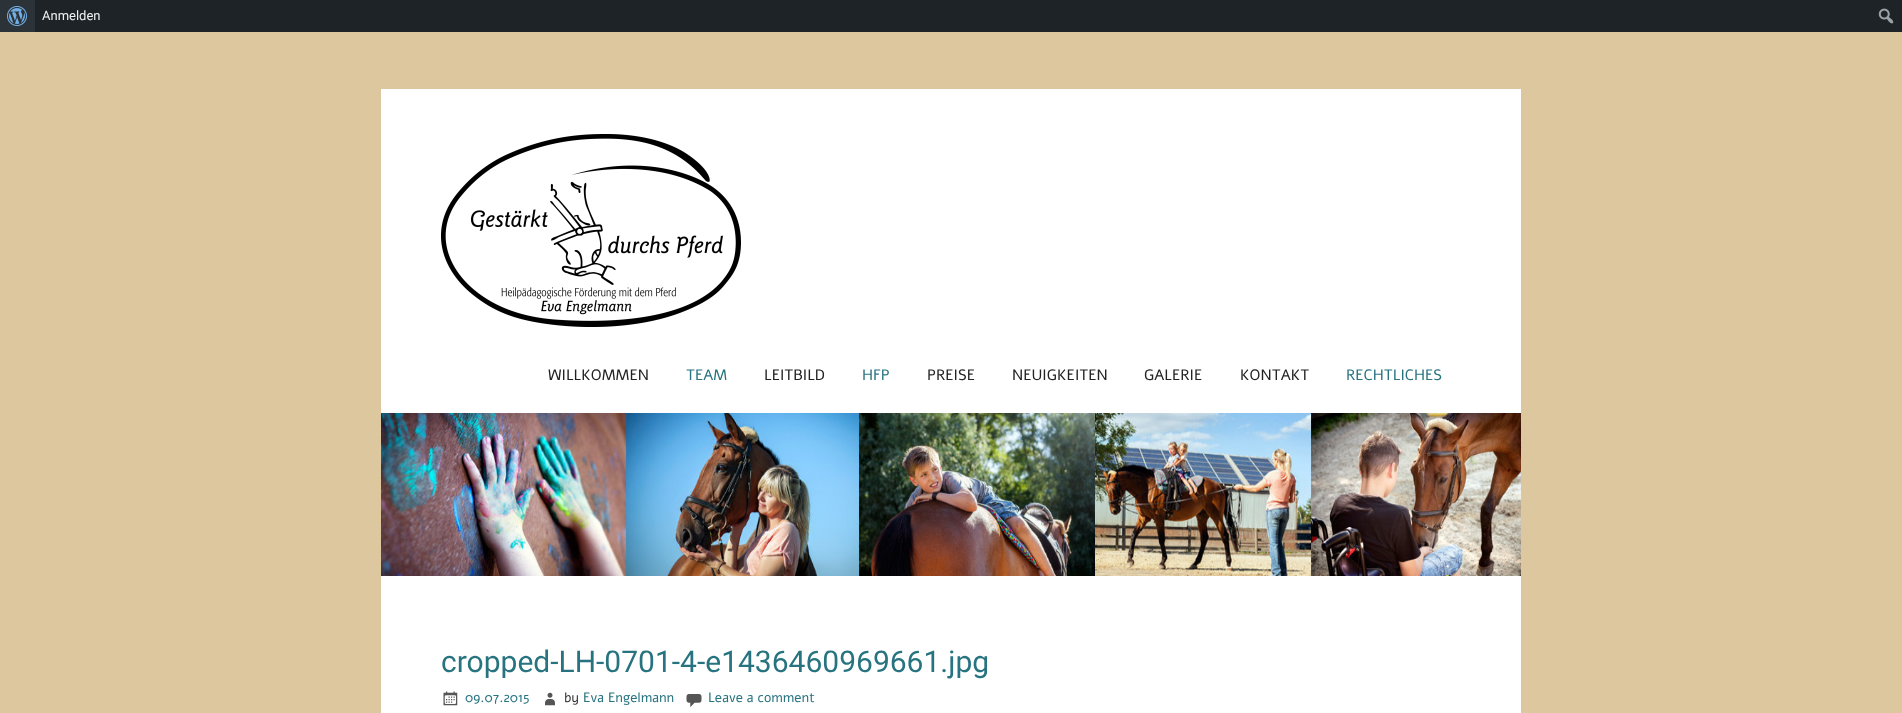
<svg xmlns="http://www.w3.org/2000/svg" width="1902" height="713">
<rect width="100%" height="100%" fill="#ddc79f"/>
<rect x="35" width="1867" height="32" fill="#1d2327"/>
<rect width="35" height="32" fill="#2c3338"/>
<image x="7" y="6" width="20" height="20" href="media/1.png"/>
<text x="42" y="20" style="font-family:Roboto;font-size:13px;fill:#f0f0f1">Anmelden</text>
<image x="1878" y="8" width="16" height="16" href="media/2.png"/>
<rect x="381" y="89" width="1140" height="624" fill="#fff"/>
<image x="441" y="134" width="300" height="193" href="media/3.png"/>
<text x="548" y="380" style="font-family:Alef;font-size:15px;fill:#222">WILLKOMMEN</text>
<text x="686" y="380" style="font-family:Alef;font-size:15px;fill:#27737f">TEAM</text>
<text x="764" y="380" style="font-family:Alef;font-size:15px;fill:#222">LEITBILD</text>
<text x="862" y="380" style="font-family:Alef;font-size:15px;fill:#27737f">HFP</text>
<text x="927" y="380" style="font-family:Alef;font-size:15px;fill:#222">PREISE</text>
<text x="1012" y="380" style="font-family:Alef;font-size:15px;fill:#222">NEUIGKEITEN</text>
<text x="1144" y="380" style="font-family:Alef;font-size:15px;fill:#222">GALERIE</text>
<text x="1240" y="380" style="font-family:Alef;font-size:15px;fill:#222">KONTAKT</text>
<text x="1346" y="380" style="font-family:Alef;font-size:15px;fill:#27737f">RECHTLICHES</text>
<image x="381" y="413" width="1140" height="163" href="media/4.png"/>
<text x="441" y="672" style="font-family:Roboto;font-size:30px;fill:#27737f">cropped-LH-0701-4-e1436460969661.jpg</text>
<image x="443" y="691" width="15" height="15" href="media/5.png"/>
<text x="465" y="702" style="font-family:Alef;font-size:13.5px;fill:#27737f">09.07.2015</text>
<image x="545" y="692" width="10" height="14" href="media/6.png"/>
<text x="564" y="702" style="font-family:Alef;font-size:13.5px;fill:#333">by</text>
<text x="583" y="702" style="font-family:Alef;font-size:13.5px;fill:#27737f">Eva Engelmann</text>
<image x="686" y="694" width="16" height="13" href="media/7.png"/>
<text x="708" y="702" style="font-family:Alef;font-size:13.5px;fill:#27737f">Leave a comment</text>
</svg>
